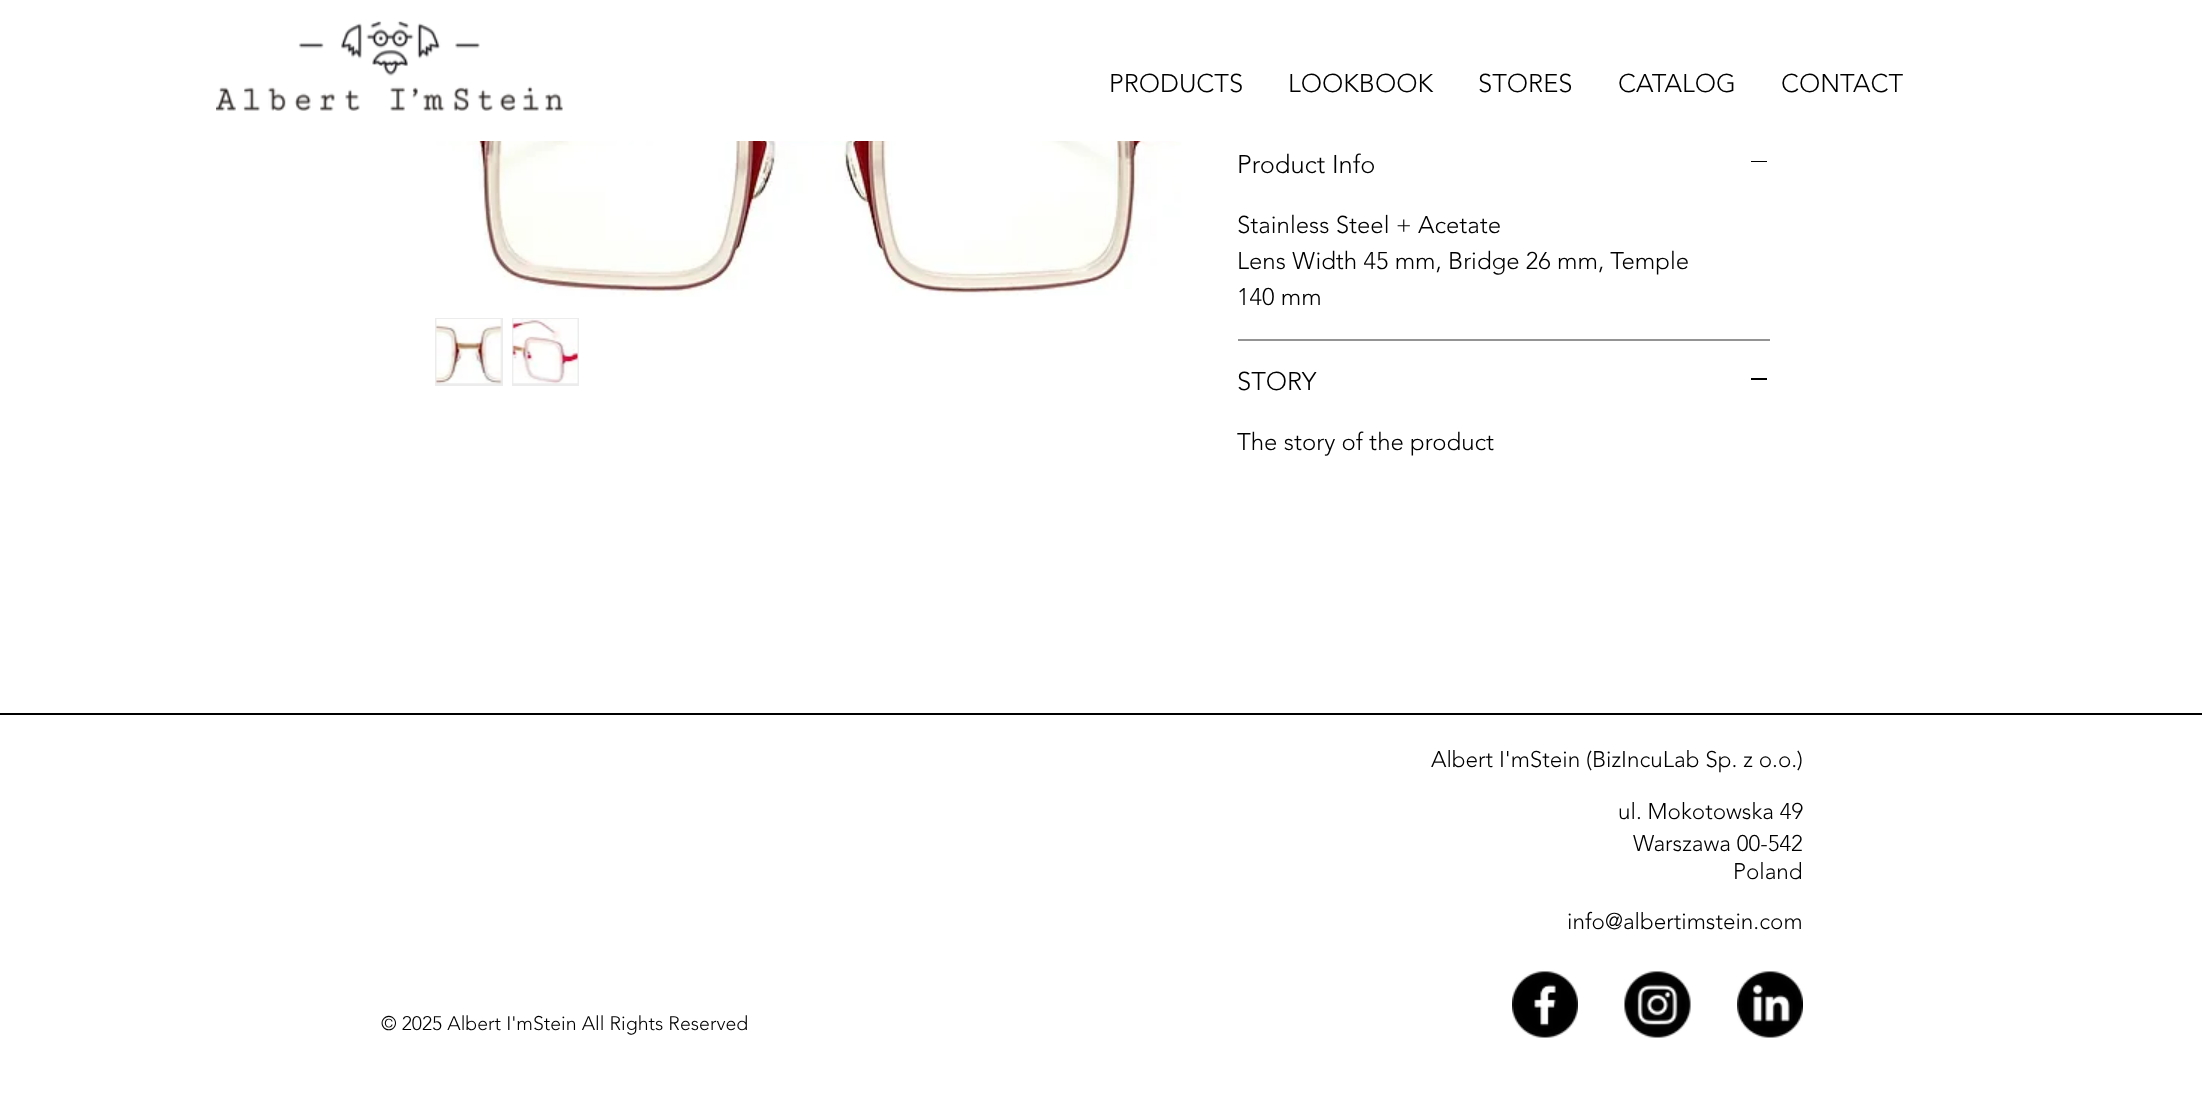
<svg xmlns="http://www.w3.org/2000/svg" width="2202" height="1114">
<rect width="100%" height="100%" fill="#fff"/>
<image x="216" y="21" width="347" height="90" href="media/1.png"/>
<text x="1109" y="92" style="font-family:'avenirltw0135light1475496';font-size:25.5px;font-weight:300;fill:#000">PRODUCTS</text>
<text x="1288" y="92" style="font-family:'avenirltw0135light1475496';font-size:25.5px;font-weight:300;fill:#000">LOOKBOOK</text>
<text x="1478" y="92" style="font-family:'avenirltw0135light1475496';font-size:25.5px;font-weight:300;fill:#000">STORES</text>
<text x="1618" y="92" style="font-family:'avenirltw0135light1475496';font-size:25.5px;font-weight:300;fill:#000">CATALOG</text>
<text x="1781" y="92" style="font-family:'avenirltw0135light1475496';font-size:25.5px;font-weight:300;fill:#000">CONTACT</text>
<image x="436" y="141" width="746" height="156" href="media/2.png"/>
<rect x="435" y="318" width="68" height="68" fill="#edecec"/>
<image x="436" y="319" width="66" height="65" href="media/3.png"/>
<rect x="512" y="318" width="67" height="68" fill="#edecec"/>
<image x="512" y="319" width="66" height="65" href="media/4.png"/>
<rect x="1238" y="339" width="532" height="2" fill="#949494"/>
<text x="1237" y="173" style="font-family:'avenirltw0135light1475496';font-size:25.5px;font-weight:300;fill:#000">Product Info</text>
<rect x="1751" y="161" width="16" height="1" fill="#000"/>
<text x="1237" y="233" style="font-family:'avenirltw0135light1475496';font-size:24px;font-weight:300;fill:#000">Stainless Steel + Acetate</text>
<text x="1237" y="269" style="font-family:'avenirltw0135light1475496';font-size:24px;font-weight:300;fill:#000">Lens Width 45 mm, Bridge 26 mm, Temple</text>
<text x="1237" y="305" style="font-family:'avenirltw0135light1475496';font-size:24px;font-weight:300;fill:#000">140 mm</text>
<text x="1237" y="390" style="font-family:'avenirltw0135light1475496';font-size:25.5px;font-weight:300;fill:#000">STORY</text>
<rect x="1751" y="378" width="16" height="2" fill="#000"/>
<text x="1237" y="450" style="font-family:'avenirltw0135light1475496';font-size:24px;font-weight:300;fill:#000">The story of the product</text>
<rect y="713" width="2202" height="2" fill="#000"/>
<text x="1431" y="767" style="font-family:'avenirltw0135light1475496';font-size:22.5px;font-weight:300;fill:#000">Albert I'mStein (BizIncuLab Sp. z o.o.)</text>
<text x="1618" y="819" style="font-family:'avenirltw0135light1475496';font-size:22.5px;font-weight:300;fill:#000">ul. Mokotowska 49</text>
<text x="1633" y="851" style="font-family:'avenirltw0135light1475496';font-size:22.5px;font-weight:300;fill:#000">Warszawa 00-542</text>
<text x="1733" y="879" style="font-family:'avenirltw0135light1475496';font-size:22.5px;font-weight:300;fill:#000">Poland</text>
<text x="1567" y="929" style="font-family:'avenirltw0135light1475496';font-size:22.5px;font-weight:300;fill:#000">info@albertimstein.com</text>
<text x="381" y="1030" style="font-family:'avenirltw0135light1475496';font-size:19.5px;font-weight:300;fill:#000">© 2025 Albert I'mStein All Rights Reserved</text>
<image x="1512" y="971" width="66" height="67" href="media/5.png"/>
<image x="1624" y="971" width="67" height="67" href="media/6.png"/>
<image x="1737" y="971" width="66" height="67" href="media/7.png"/>
</svg>
